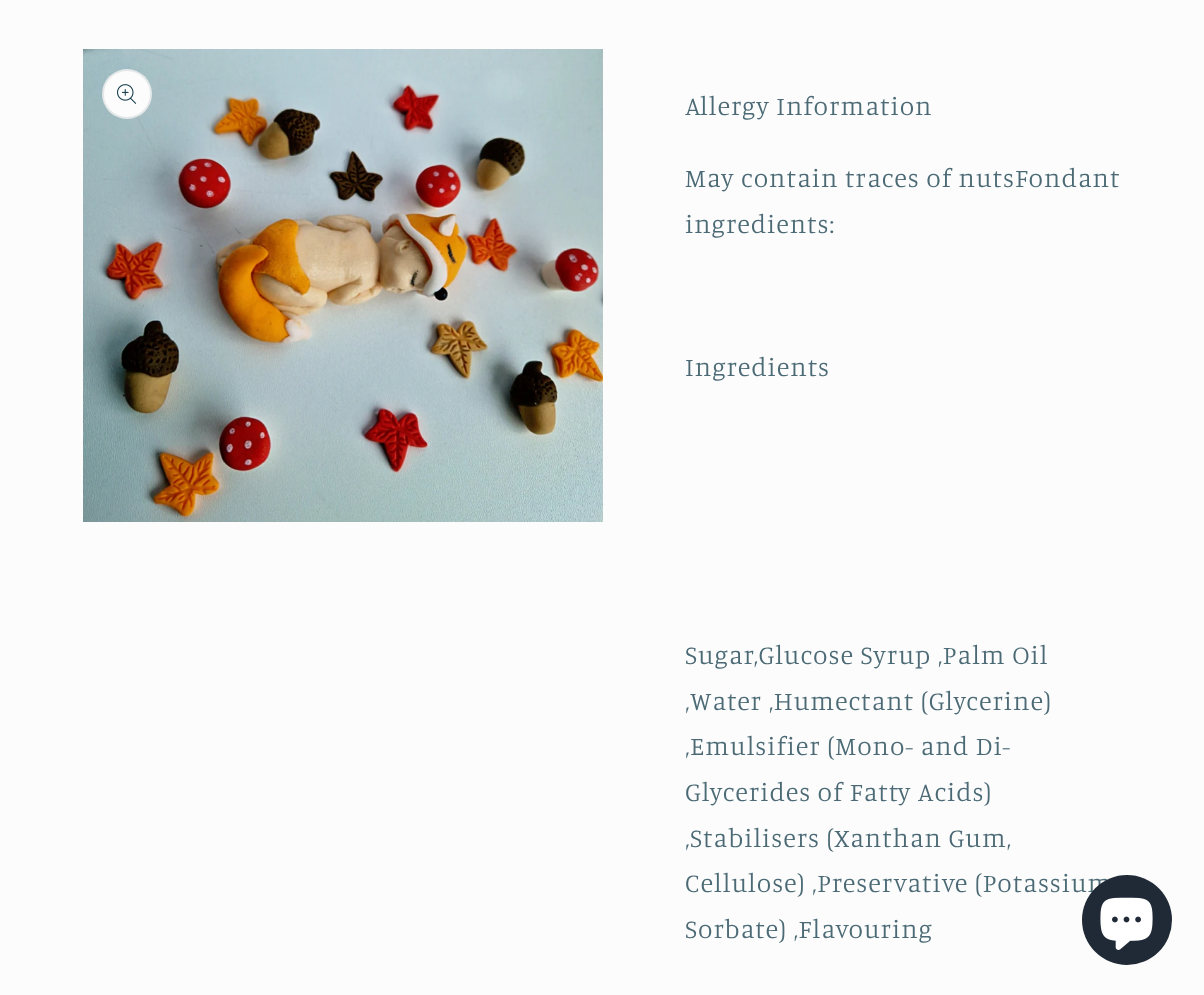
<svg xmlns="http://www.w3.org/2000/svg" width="1204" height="995">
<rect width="100%" height="100%" fill="#fcfcfc"/>
<image x="83" y="49" width="520" height="473" href="media/1.png"/>
<circle cx="127" cy="94" r="25" fill="#fcfcfc"/>
<circle cx="127" cy="94" r="24" fill="none" stroke="#1039481a" stroke-width="2"/>
<image x="117" y="84" width="20" height="20" href="media/2.png"/>
<text x="685" y="115" style="font-family:Manuale;font-size:26.4px;font-weight:300;letter-spacing:1px;fill:#4b6a75">Allergy Information</text>
<text x="685" y="187" style="font-family:Manuale;font-size:26.4px;font-weight:300;letter-spacing:1px;fill:#4b6a75">May contain traces of nutsFondant</text>
<text x="685" y="233" style="font-family:Manuale;font-size:26.4px;font-weight:300;letter-spacing:1px;fill:#4b6a75">ingredients:</text>
<text x="685" y="376" style="font-family:Manuale;font-size:26.4px;font-weight:300;letter-spacing:1px;fill:#4b6a75">Ingredients</text>
<text x="685" y="664" style="font-family:Manuale;font-size:26.4px;font-weight:300;letter-spacing:1px;fill:#4b6a75">Sugar,Glucose Syrup ,Palm Oil</text>
<text x="685" y="710" style="font-family:Manuale;font-size:26.4px;font-weight:300;letter-spacing:1px;fill:#4b6a75">,Water ,Humectant (Glycerine)</text>
<text x="685" y="755" style="font-family:Manuale;font-size:26.4px;font-weight:300;letter-spacing:1px;fill:#4b6a75">,Emulsifier (Mono- and Di-</text>
<text x="685" y="801" style="font-family:Manuale;font-size:26.4px;font-weight:300;letter-spacing:1px;fill:#4b6a75">Glycerides of Fatty Acids)</text>
<text x="685" y="847" style="font-family:Manuale;font-size:26.4px;font-weight:300;letter-spacing:1px;fill:#4b6a75">,Stabilisers (Xanthan Gum,</text>
<text x="685" y="892" style="font-family:Manuale;font-size:26.4px;font-weight:300;letter-spacing:1px;fill:#4b6a75">Cellulose) ,Preservative (Potassium</text>
<text x="685" y="938" style="font-family:Manuale;font-size:26.4px;font-weight:300;letter-spacing:1px;fill:#4b6a75">Sorbate) ,Flavouring</text>
<circle cx="1127" cy="920" r="45" fill="#202a36"/>
<image x="1100" y="897" width="53" height="53" href="media/3.png"/>
</svg>
